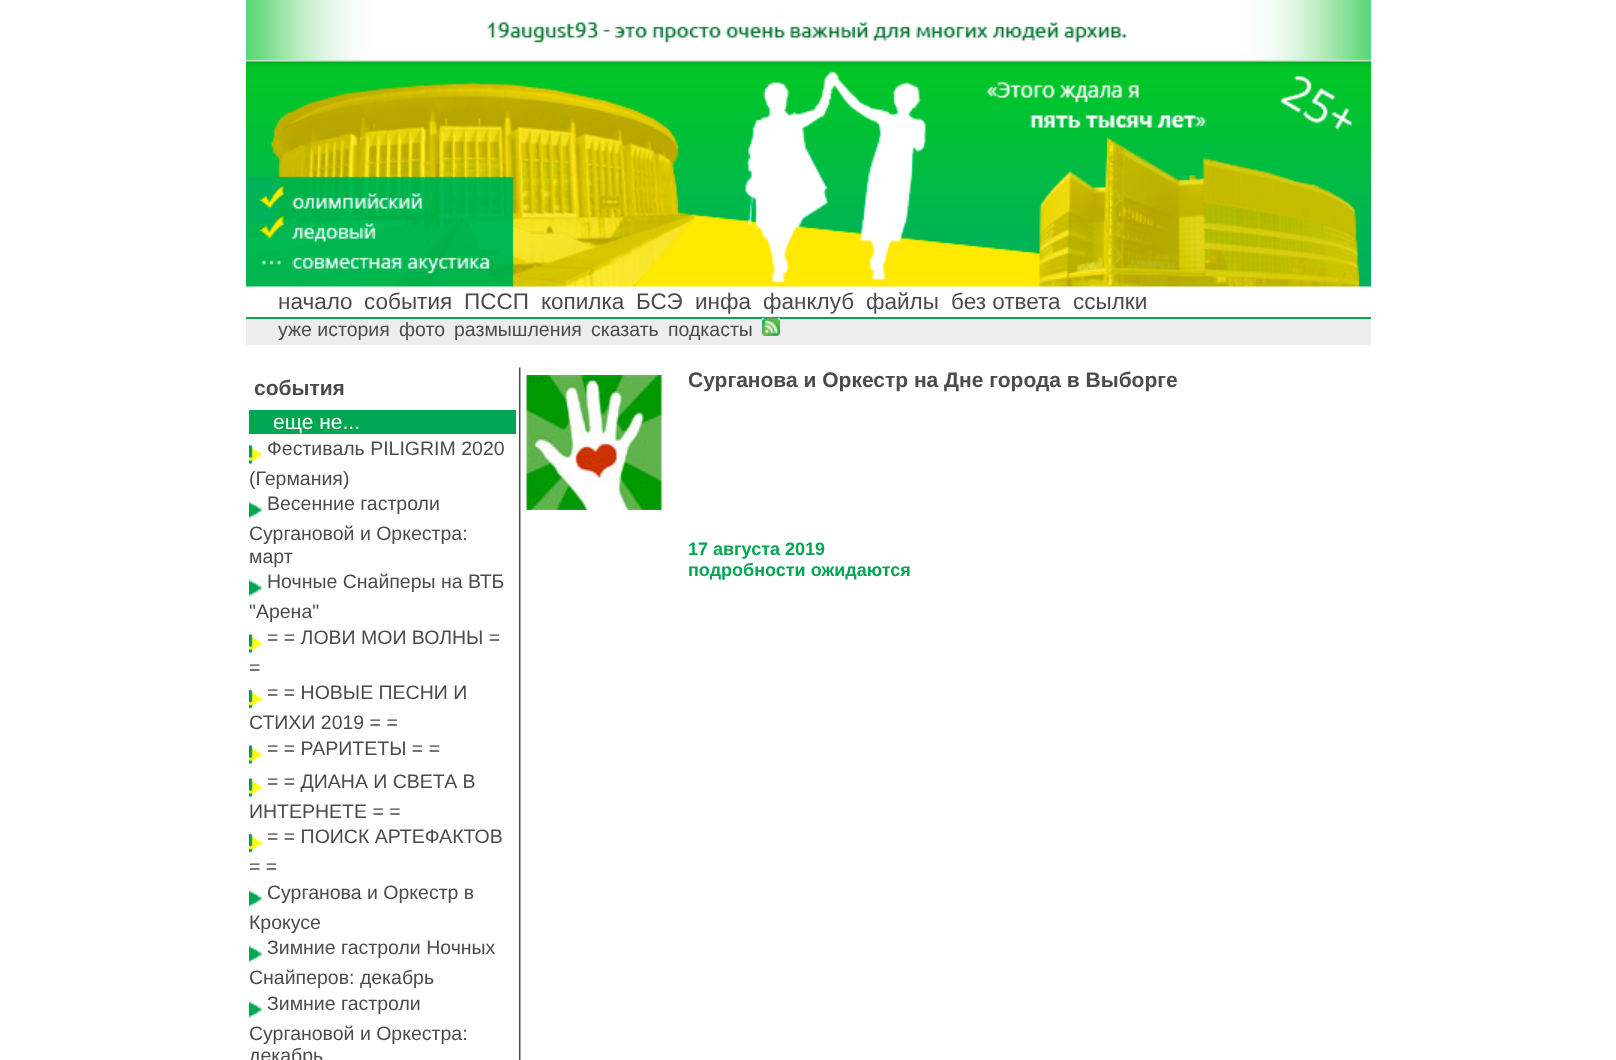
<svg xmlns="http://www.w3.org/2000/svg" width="1616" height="1060">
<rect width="100%" height="100%" fill="#fff"/>
<image x="246" y="0" width="1125" height="287" href="media/1.png"/>
<text x="278" y="309" style="font-family:Liberation Sans;font-size:22.5px;fill:#4b4b4b">начало</text>
<text x="364" y="309" style="font-family:Liberation Sans;font-size:22.5px;fill:#4b4b4b">события</text>
<text x="464" y="309" style="font-family:Liberation Sans;font-size:22.5px;fill:#4b4b4b">ПССП</text>
<text x="541" y="309" style="font-family:Liberation Sans;font-size:22.5px;fill:#4b4b4b">копилка</text>
<text x="636" y="309" style="font-family:Liberation Sans;font-size:22.5px;fill:#4b4b4b">БСЭ</text>
<text x="695" y="309" style="font-family:Liberation Sans;font-size:22.5px;fill:#4b4b4b">инфа</text>
<text x="763" y="309" style="font-family:Liberation Sans;font-size:22.5px;fill:#4b4b4b">фанклуб</text>
<text x="866" y="309" style="font-family:Liberation Sans;font-size:22.5px;fill:#4b4b4b">файлы</text>
<text x="951" y="309" style="font-family:Liberation Sans;font-size:22.5px;fill:#4b4b4b">без ответа</text>
<text x="1073" y="309" style="font-family:Liberation Sans;font-size:22.5px;fill:#4b4b4b">ссылки</text>
<rect x="246" y="319" width="1125" height="26" fill="#ededed"/>
<rect x="246" y="317" width="1125" height="2" fill="#00a651"/>
<text x="278" y="336" style="font-family:Liberation Sans;font-size:19.5px;fill:#4b4b4b">уже история</text>
<text x="399" y="336" style="font-family:Liberation Sans;font-size:19.5px;fill:#4b4b4b">фото</text>
<text x="454" y="336" style="font-family:Liberation Sans;font-size:19.5px;fill:#4b4b4b">размышления</text>
<text x="591" y="336" style="font-family:Liberation Sans;font-size:19.5px;fill:#4b4b4b">сказать</text>
<text x="668" y="336" style="font-family:Liberation Sans;font-size:19.5px;fill:#4b4b4b">подкасты</text>
<image x="762" y="318" width="18" height="18" href="media/2.png"/>
<text x="254" y="395" style="font-family:Liberation Sans;font-size:21px;font-weight:bold;fill:#4b4b4b">события</text>
<rect x="249" y="410" width="267" height="24" fill="#00a651"/>
<text x="273" y="429" style="font-family:Liberation Sans;font-size:21px;fill:#fff">еще не...</text>
<image x="249" y="445" width="14" height="19" href="media/3.png"/>
<text x="267" y="455" style="font-family:Liberation Sans;font-size:19.5px;fill:#4b4b4b">Фестиваль PILIGRIM 2020</text>
<text x="249" y="485" style="font-family:Liberation Sans;font-size:19.5px;fill:#4b4b4b">(Германия)</text>
<image x="249" y="500" width="14" height="20" href="media/4.png"/>
<text x="267" y="510" style="font-family:Liberation Sans;font-size:19.5px;fill:#4b4b4b">Весенние гастроли</text>
<text x="249" y="540" style="font-family:Liberation Sans;font-size:19.5px;fill:#4b4b4b">Сургановой и Оркестра:</text>
<text x="249" y="563" style="font-family:Liberation Sans;font-size:19.5px;fill:#4b4b4b">март</text>
<image x="249" y="578" width="14" height="20" href="media/4.png"/>
<text x="267" y="588" style="font-family:Liberation Sans;font-size:19.5px;fill:#4b4b4b">Ночные Снайперы на ВТБ</text>
<text x="249" y="618" style="font-family:Liberation Sans;font-size:19.5px;fill:#4b4b4b">"Арена"</text>
<image x="249" y="634" width="14" height="19" href="media/3.png"/>
<text x="267" y="644" style="font-family:Liberation Sans;font-size:19.5px;fill:#4b4b4b">= = ЛОВИ МОИ ВОЛНЫ =</text>
<text x="249" y="674" style="font-family:Liberation Sans;font-size:19.5px;fill:#4b4b4b">=</text>
<image x="249" y="689" width="14" height="20" href="media/5.png"/>
<text x="267" y="699" style="font-family:Liberation Sans;font-size:19.5px;fill:#4b4b4b">= = НОВЫЕ ПЕСНИ И</text>
<text x="249" y="729" style="font-family:Liberation Sans;font-size:19.5px;fill:#4b4b4b">СТИХИ 2019 = =</text>
<image x="249" y="745" width="14" height="19" href="media/3.png"/>
<text x="267" y="755" style="font-family:Liberation Sans;font-size:19.5px;fill:#4b4b4b">= = РАРИТЕТЫ = =</text>
<image x="249" y="778" width="14" height="19" href="media/3.png"/>
<text x="267" y="788" style="font-family:Liberation Sans;font-size:19.5px;fill:#4b4b4b">= = ДИАНА И СВЕТА В</text>
<text x="249" y="818" style="font-family:Liberation Sans;font-size:19.5px;fill:#4b4b4b">ИНТЕРНЕТЕ = =</text>
<image x="249" y="833" width="14" height="20" href="media/5.png"/>
<text x="267" y="843" style="font-family:Liberation Sans;font-size:19.5px;fill:#4b4b4b">= = ПОИСК АРТЕФАКТОВ</text>
<text x="249" y="873" style="font-family:Liberation Sans;font-size:19.5px;fill:#4b4b4b">= =</text>
<image x="249" y="889" width="14" height="19" href="media/6.png"/>
<text x="267" y="899" style="font-family:Liberation Sans;font-size:19.5px;fill:#4b4b4b">Сурганова и Оркестр в</text>
<text x="249" y="929" style="font-family:Liberation Sans;font-size:19.5px;fill:#4b4b4b">Крокусе</text>
<image x="249" y="944" width="14" height="20" href="media/4.png"/>
<text x="267" y="954" style="font-family:Liberation Sans;font-size:19.5px;fill:#4b4b4b">Зимние гастроли Ночных</text>
<text x="249" y="984" style="font-family:Liberation Sans;font-size:19.5px;fill:#4b4b4b">Снайперов: декабрь</text>
<image x="249" y="1000" width="14" height="19" href="media/6.png"/>
<text x="267" y="1010" style="font-family:Liberation Sans;font-size:19.5px;fill:#4b4b4b">Зимние гастроли</text>
<text x="249" y="1040" style="font-family:Liberation Sans;font-size:19.5px;fill:#4b4b4b">Сургановой и Оркестра:</text>
<text x="249" y="1062" style="font-family:Liberation Sans;font-size:19.5px;fill:#4b4b4b">декабрь</text>
<image x="519" y="367" width="2" height="693" href="media/7.png"/>
<image x="526" y="375" width="136" height="135" href="media/8.png"/>
<text x="688" y="387" style="font-family:Liberation Sans;font-size:21px;font-weight:bold;fill:#4b4b4b">Сурганова и Оркестр на Дне города в Выборге</text>
<text x="688" y="555" style="font-family:Liberation Sans;font-size:18px;font-weight:bold;fill:#00a651">17 августа 2019</text>
<text x="688" y="576" style="font-family:Liberation Sans;font-size:18px;font-weight:bold;fill:#00a651">подробности ожидаются</text>
</svg>
